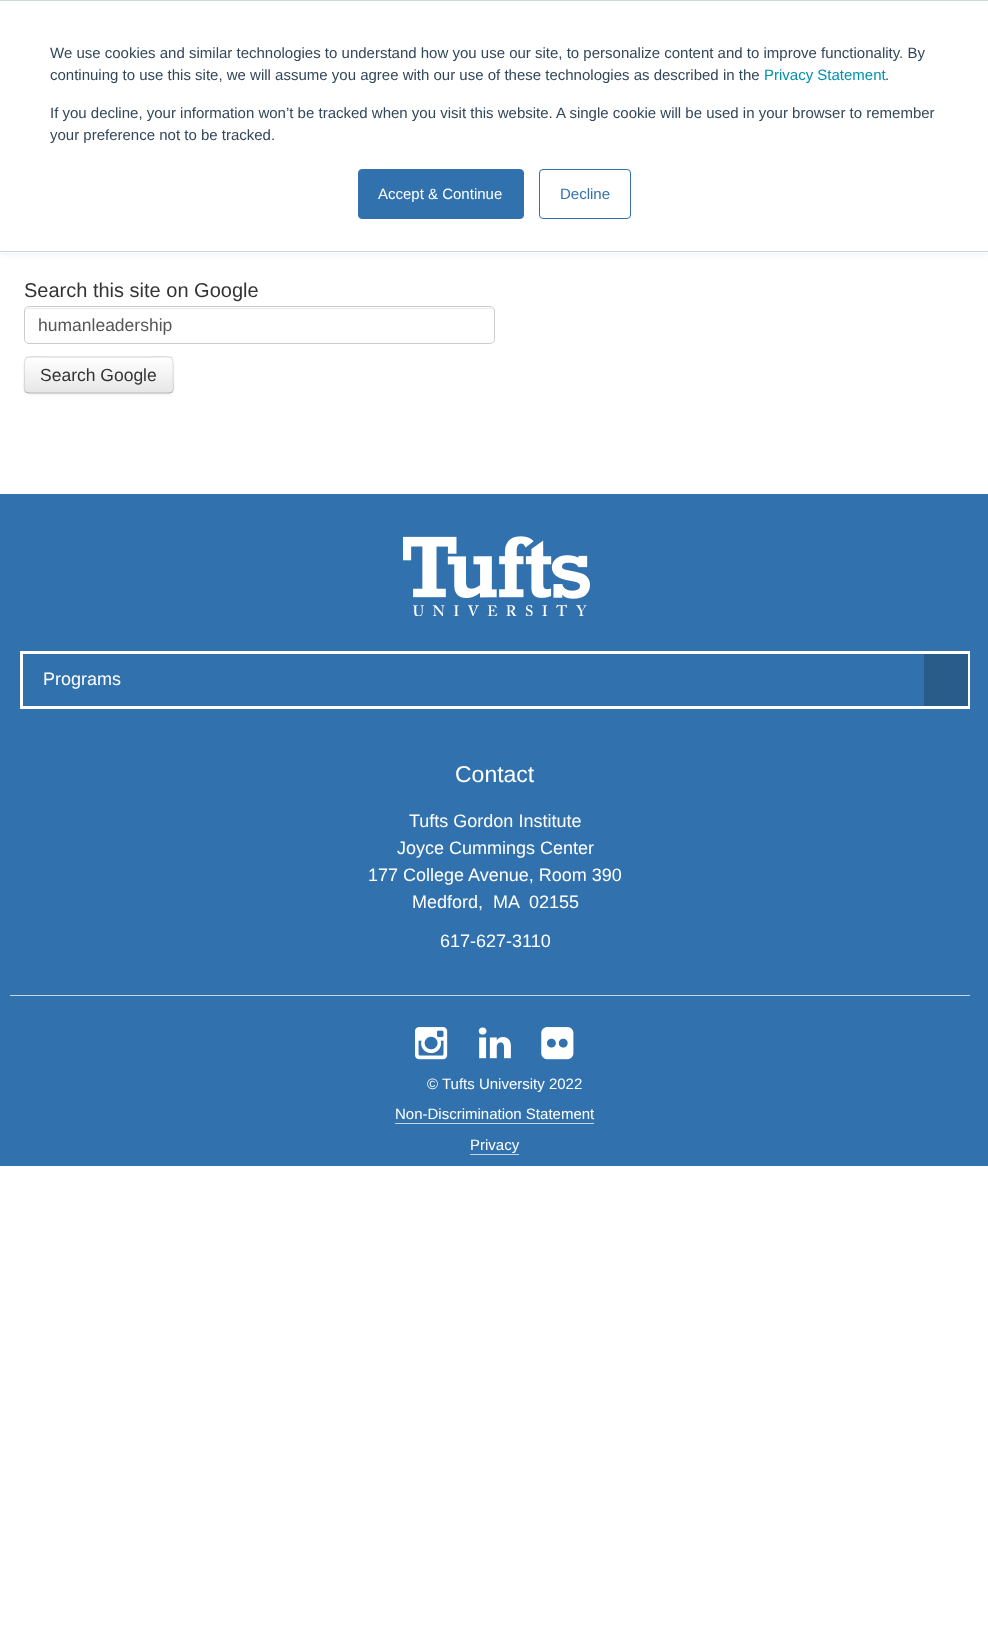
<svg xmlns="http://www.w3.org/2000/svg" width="988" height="1639">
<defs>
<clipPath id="clip1"><rect x="24" y="356" width="150" height="38" rx="5"/></clipPath>
<linearGradient id="g1" gradientUnits="userSpaceOnUse" x1="99" y1="358" x2="99" y2="393"><stop offset="0" stop-color="#fff"/><stop offset="1" stop-color="#e6e6e6"/></linearGradient>
</defs>
<rect width="100%" height="100%" fill="#fff"/>
<rect y="1" width="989" height="253" fill="#eaf0f6" filter="blur(3px)"/>
<rect y="1" width="988" height="252" fill="#fff"/>
<rect width="988" height="1" fill="#cbd6e2"/>
<rect y="251" width="988" height="1" fill="#cbd6e2"/>
<text x="50" y="58" style="font-family:Liberation Sans;font-size:15px;fill:#33475b">We use cookies and similar technologies to understand how you use our site, to personalize content and to improve functionality. By</text>
<text x="50" y="80" style="font-family:Liberation Sans;font-size:15px;fill:#33475b">continuing to use this site, we will assume you agree with our use of these technologies as described in the</text>
<text x="764" y="80" style="font-family:Liberation Sans;font-size:15px;fill:#0091ae">Privacy Statement</text>
<text x="885" y="80" style="font-family:Liberation Sans;font-size:15px;fill:#33475b">.</text>
<text x="50" y="118" style="font-family:Liberation Sans;font-size:15px;fill:#33475b">If you decline, your information won’t be tracked when you visit this website. A single cookie will be used in your browser to remember</text>
<text x="50" y="140" style="font-family:Liberation Sans;font-size:15px;fill:#33475b">your preference not to be tracked.</text>
<rect x="358.5" y="169.5" width="165" height="49" rx="3.5" fill="#3172ae" stroke="#3172ae"/>
<text x="378" y="199" style="font-family:Liberation Sans;font-size:15px;fill:#fff">Accept &amp; Continue</text>
<rect x="539.5" y="169.5" width="91" height="49" rx="3.5" fill="none" stroke="#3172ae"/>
<text x="560" y="199" style="font-family:Liberation Sans;font-size:15px;fill:#3172ae">Decline</text>
<text x="24" y="297" style="font-family:Liberation Sans;font-size:20px;fill:#333">Search this site on Google</text>
<path d="M29 309h461c2 0 4 1 4 3c0-2-2-4-4-4h-461c-2 0-4 2-4 4c0-2 2-3 4-3z" fill="#ececec"/>
<rect x="24.5" y="306.5" width="470" height="37" rx="4.5" fill="none" stroke="#ccc"/>
<text x="38" y="331" style="font-family:Liberation Sans;font-size:17.5px;fill:#555">humanleadership</text>
<rect x="24" y="358" width="150" height="37" rx="5" fill="#0000000d" filter="blur(1px)"/>
<rect x="24" y="356" width="150" height="38" rx="5" fill="#f5f5f5"/>
<g clip-path="url(#clip1)">
<rect x="24" y="358" width="150" height="35" fill="url(#g1)"/>
</g>
<path d="M29 359h140c2 0 3 1 3 3v30c0-1 1-2 1-3v-27c0-2-2-4-4-4h-140c-2 0-4 2-4 4c0-2 2-3 4-3z" fill="#ffffff33"/>
<path d="M172 392l-3 1h-117h-23l-3.5-1" fill="none" stroke="#b3b3b3" stroke-width="1.2"/>
<path d="M25.5 392c-2.5-3-1-9.5-1-12.5c0-28.5-4-22.5 27.5-22.5h93.5c31.5 0 27.5-6 27.5 22.5c0 3 1.5 9.5-1 12.5" fill="none" stroke="#0000001a" stroke-width="1.2"/>
<text x="40" y="381" style="font-family:Liberation Sans;font-size:17.5px;fill:#333">Search Google</text>
<rect y="494" width="988" height="672" fill="#3172ae"/>
<image x="403" y="536" width="187" height="80" href="media/1.png"/>
<rect x="21.5" y="652.5" width="947" height="55" fill="none" stroke="#fff" stroke-width="3"/>
<text x="43" y="685" style="font-family:Liberation Sans;font-size:18px;fill:#fff">Programs</text>
<rect x="924" y="654" width="44" height="52" fill="#2a5c89"/>
<text x="455" y="782" style="font-family:Liberation Sans;font-size:23px;fill:#fff">Contact</text>
<text x="409" y="827" style="font-family:Liberation Sans;font-size:18px;fill:#fff">Tufts Gordon Institute</text>
<text x="397" y="854" style="font-family:Liberation Sans;font-size:18px;fill:#fff">Joyce Cummings Center</text>
<text x="368" y="881" style="font-family:Liberation Sans;font-size:18px;fill:#fff">177 College Avenue, Room 390</text>
<text x="412" y="908" style="font-family:Liberation Sans;font-size:18px;fill:#fff" xml:space="preserve">Medford,  MA  02155</text>
<text x="440" y="947" style="font-family:Liberation Sans;font-size:18px;fill:#fff">617-627-3110</text>
<rect x="10" y="995" width="960" height="1" fill="#c1d5e7"/>
<image x="415" y="1027" width="33" height="33" href="media/2.png"/>
<image x="478" y="1027" width="33" height="32" href="media/3.png"/>
<image x="541" y="1027" width="33" height="33" href="media/4.png"/>
<text x="427" y="1089" style="font-family:Liberation Sans;font-size:15px;fill:#fff">© Tufts University 2022</text>
<text x="395" y="1119" style="font-family:Liberation Sans;font-size:15px;fill:#fff">Non-Discrimination Statement</text>
<rect x="395" y="1123" width="199" height="1" fill="#c1d5e7"/>
<text x="470" y="1150" style="font-family:Liberation Sans;font-size:15px;fill:#fff">Privacy</text>
<rect x="470" y="1154" width="49" height="1" fill="#c1d5e7"/>
</svg>
